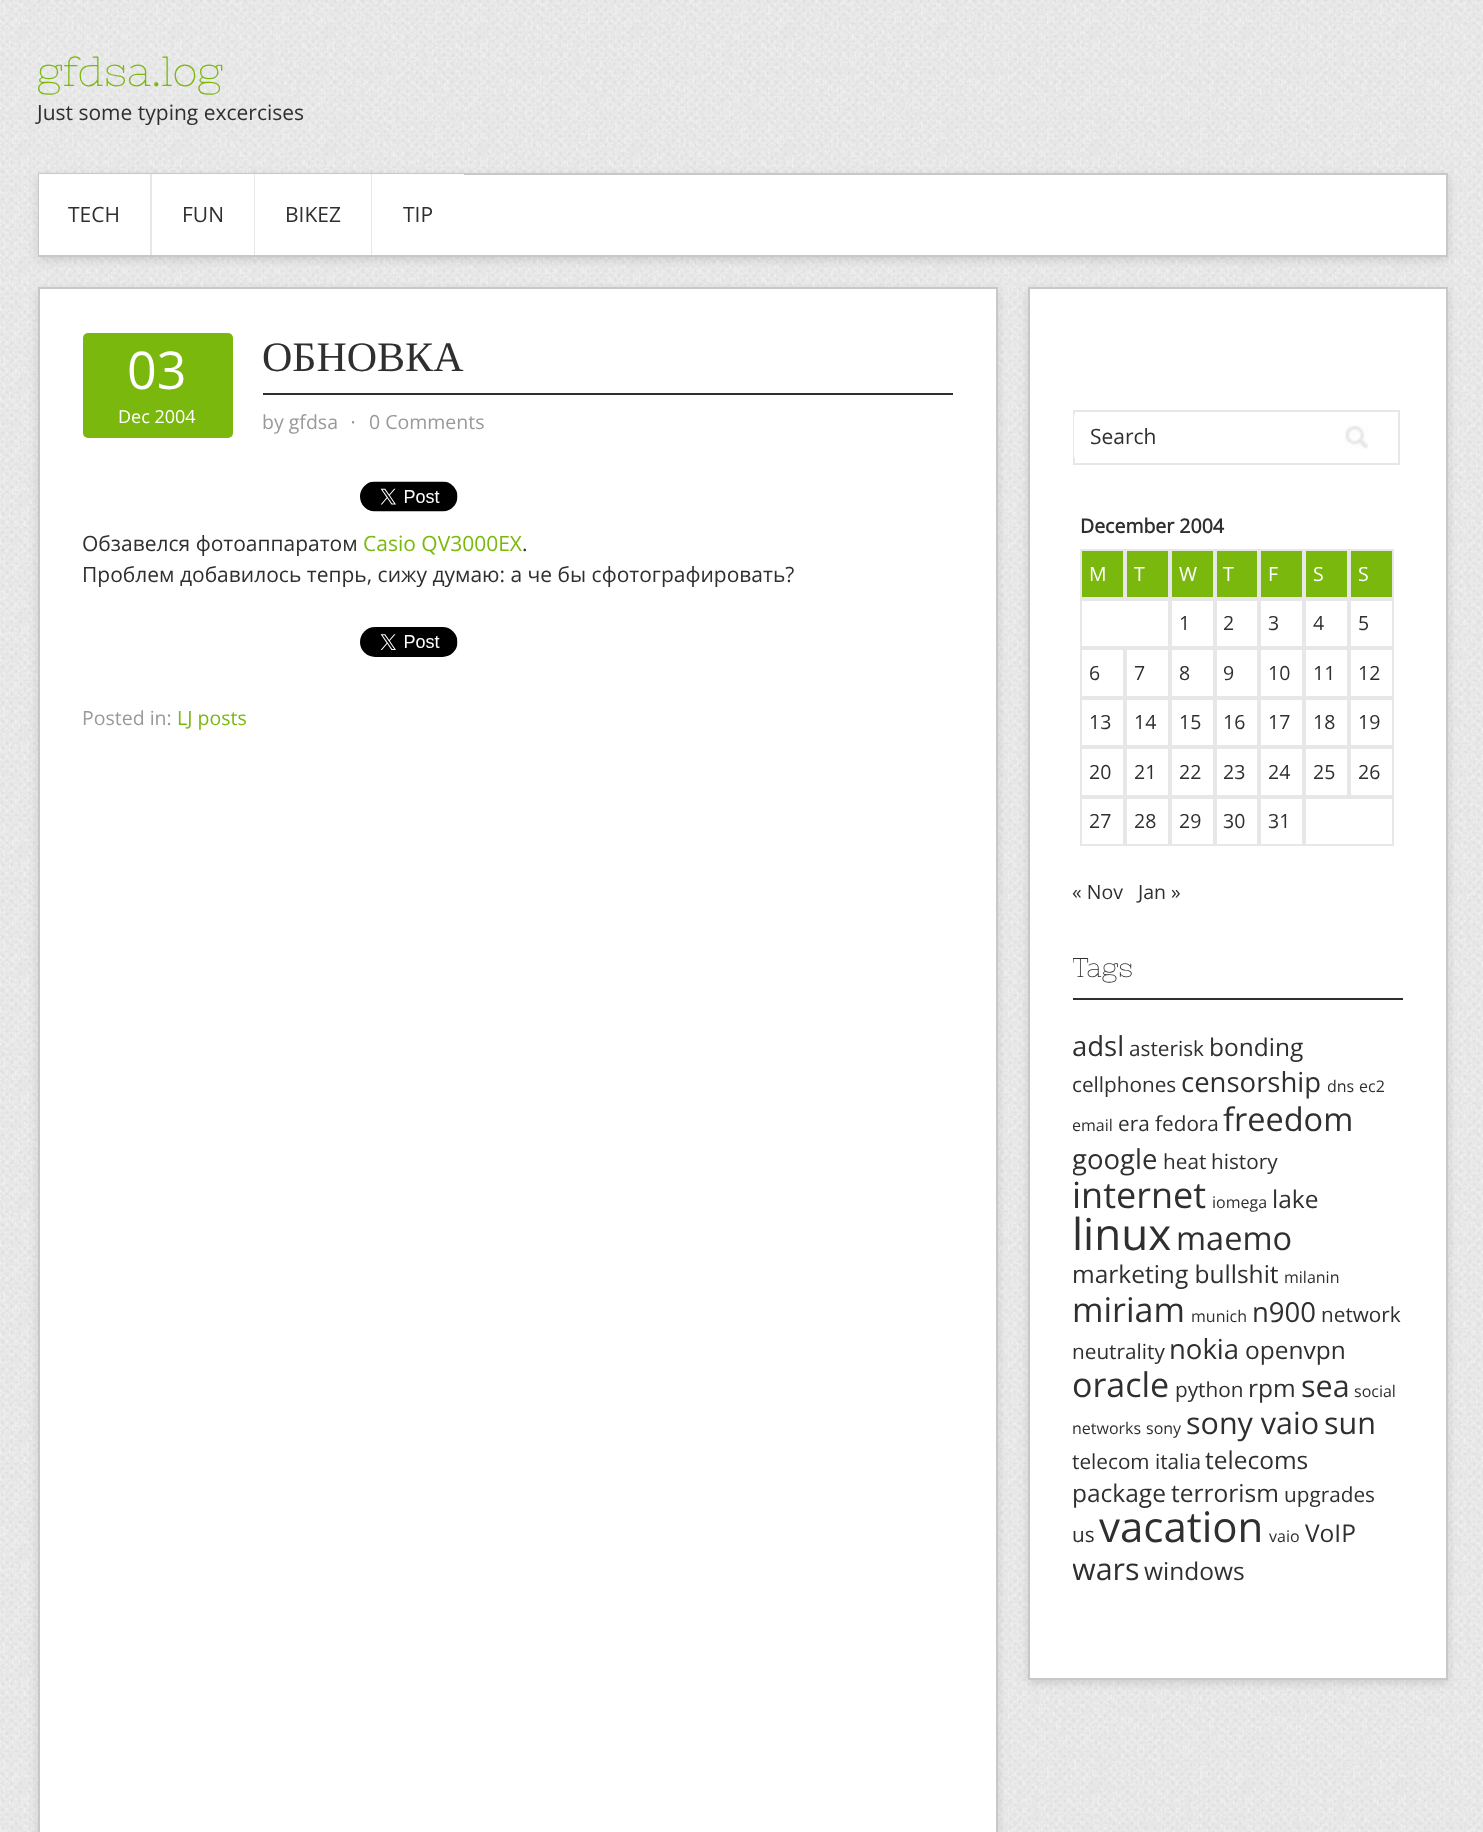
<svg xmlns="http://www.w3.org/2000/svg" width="1483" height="1832">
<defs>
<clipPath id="clip1"><rect x="1073" y="953" width="330" height="636"/></clipPath>
</defs>
<rect width="100%" height="100%" fill="#fff"/>
<image x="0" y="0" width="1483" height="1832" href="media/1.png"/>
<text x="37" y="86" style="font-family:Nixie One;font-size:42px;fill:#7ab80e">gfdsa.log</text>
<text x="37" y="120" style="font-family:Open Sans;font-size:21px;fill:#2f2f2f">Just some typing excercises</text>
<rect x="38" y="176" width="1410" height="84" fill="#32323226" filter="blur(4px)"/>
<rect x="464" y="175" width="982" height="80" fill="#fff"/>
<rect x="39" y="174" width="1408" height="82" fill="none" stroke="#c8c8c8" stroke-width="2"/>
<rect x="39" y="174" width="111" height="81" fill="#fff"/>
<rect x="150" y="174" width="2" height="81" fill="#e7e7e7"/>
<text x="68" y="222" style="font-family:Open Sans;font-size:21px;fill:#2f2f2f">TECH</text>
<rect x="152" y="174" width="102" height="81" fill="#fff"/>
<rect x="254" y="174" width="1" height="81" fill="#e7e7e7"/>
<text x="182" y="222" style="font-family:Open Sans;font-size:21px;fill:#2f2f2f">FUN</text>
<rect x="255" y="174" width="116" height="81" fill="#fff"/>
<rect x="371" y="174" width="1" height="81" fill="#e7e7e7"/>
<text x="285" y="222" style="font-family:Open Sans;font-size:21px;fill:#2f2f2f">BIKEZ</text>
<rect x="372" y="174" width="92" height="81" fill="#fff"/>
<text x="403" y="222" style="font-family:Open Sans;font-size:21px;fill:#2f2f2f">TIP</text>
<rect x="38" y="290" width="960" height="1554" fill="#32323226" filter="blur(4px)"/>
<rect x="39" y="288" width="958" height="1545" fill="#fff" stroke="#c8c8c8" stroke-width="2"/>
<rect x="83" y="333" width="150" height="105" rx="5" fill="#7ab80e"/>
<text x="127" y="389" style="font-family:Open Sans;font-size:52px;fill:#fff">03</text>
<text x="118" y="423" style="font-family:Open Sans;font-size:18px;fill:#fff">Dec 2004</text>
<rect x="263" y="393" width="690" height="2" fill="#2f2f2f"/>
<text x="262" y="371" style="font-family:Liberation Serif;font-size:42px;fill:#2f2f2f">ОБНОВКА</text>
<text x="262" y="429" style="font-family:Open Sans;font-size:19.5px;fill:#999">by gfdsa</text>
<text x="350" y="429" style="font-family:DejaVu Sans;font-size:19.5px;fill:#999">⋅</text>
<text x="369" y="429" style="font-family:Open Sans;font-size:19.5px;fill:#999">0 Comments</text>
<image x="360" y="481" width="98" height="31" href="media/2.png"/>
<text x="82" y="551" style="font-family:Open Sans;font-size:21px;fill:#2f2f2f">Обзавелся фотоаппаратом</text>
<text x="363" y="551" style="font-family:Open Sans;font-size:21px;fill:#7ab80e">Casio QV3000EX</text>
<text x="522" y="551" style="font-family:Open Sans;font-size:21px;fill:#2f2f2f">.</text>
<text x="82" y="582" style="font-family:Open Sans;font-size:21px;fill:#2f2f2f">Проблем добавилось тепрь, сижу думаю: а че бы сфотографировать?</text>
<image x="360" y="627" width="98" height="30" href="media/3.png"/>
<text x="82" y="725" style="font-family:Open Sans;font-size:19.5px;fill:#999">Posted in:</text>
<text x="177" y="725" style="font-family:Open Sans;font-size:19.5px;fill:#7ab80e">LJ posts</text>
<rect x="1028" y="290" width="420" height="1393" fill="#32323226" filter="blur(4px)"/>
<rect x="1029" y="288" width="418" height="1391" fill="#fff" stroke="#c8c8c8" stroke-width="2"/>
<rect x="1074" y="411" width="325" height="53" fill="none" stroke="#e7e7e7" stroke-width="2"/>
<rect x="1074" y="413" width="258" height="46" rx="3" fill="#fff"/>
<text x="1090" y="444" style="font-family:Open Sans;font-size:21px;fill:#2f2f2f">Search</text>
<image x="1345" y="425" width="23" height="24" href="media/4.png"/>
<text x="1080" y="533" style="font-family:Open Sans;font-size:19.5px;font-weight:bold;fill:#2f2f2f">December 2004</text>
<rect x="1082" y="551" width="310" height="46" fill="#7ab80e"/>
<rect x="1081" y="550" width="43" height="48" fill="none" stroke="#e7e7e7" stroke-width="2"/>
<text x="1089" y="581" style="font-family:Open Sans;font-size:19.5px;fill:#fff">M</text>
<rect x="1126" y="550" width="43" height="48" fill="none" stroke="#e7e7e7" stroke-width="2"/>
<text x="1134" y="581" style="font-family:Open Sans;font-size:19.5px;fill:#fff">T</text>
<rect x="1171" y="550" width="43" height="48" fill="none" stroke="#e7e7e7" stroke-width="2"/>
<text x="1179" y="581" style="font-family:Open Sans;font-size:19.5px;fill:#fff">W</text>
<rect x="1216" y="550" width="42" height="48" fill="none" stroke="#e7e7e7" stroke-width="2"/>
<text x="1223" y="581" style="font-family:Open Sans;font-size:19.5px;fill:#fff">T</text>
<rect x="1260" y="550" width="43" height="48" fill="none" stroke="#e7e7e7" stroke-width="2"/>
<text x="1268" y="581" style="font-family:Open Sans;font-size:19.5px;fill:#fff">F</text>
<rect x="1305" y="550" width="43" height="48" fill="none" stroke="#e7e7e7" stroke-width="2"/>
<text x="1313" y="581" style="font-family:Open Sans;font-size:19.5px;fill:#fff">S</text>
<rect x="1350" y="550" width="43" height="48" fill="none" stroke="#e7e7e7" stroke-width="2"/>
<text x="1358" y="581" style="font-family:Open Sans;font-size:19.5px;fill:#fff">S</text>
<rect x="1081" y="600" width="88" height="47" fill="none" stroke="#e7e7e7" stroke-width="2"/>
<rect x="1171" y="600" width="43" height="47" fill="none" stroke="#e7e7e7" stroke-width="2"/>
<text x="1179" y="630" style="font-family:Open Sans;font-size:19.5px;fill:#2f2f2f">1</text>
<rect x="1216" y="600" width="42" height="47" fill="none" stroke="#e7e7e7" stroke-width="2"/>
<text x="1223" y="630" style="font-family:Open Sans;font-size:19.5px;fill:#2f2f2f">2</text>
<rect x="1260" y="600" width="43" height="47" fill="none" stroke="#e7e7e7" stroke-width="2"/>
<text x="1268" y="630" style="font-family:Open Sans;font-size:19.5px;fill:#2f2f2f">3</text>
<rect x="1305" y="600" width="43" height="47" fill="none" stroke="#e7e7e7" stroke-width="2"/>
<text x="1313" y="630" style="font-family:Open Sans;font-size:19.5px;fill:#2f2f2f">4</text>
<rect x="1350" y="600" width="43" height="47" fill="none" stroke="#e7e7e7" stroke-width="2"/>
<text x="1358" y="630" style="font-family:Open Sans;font-size:19.5px;fill:#2f2f2f">5</text>
<rect x="1081" y="649" width="43" height="48" fill="none" stroke="#e7e7e7" stroke-width="2"/>
<text x="1089" y="680" style="font-family:Open Sans;font-size:19.5px;fill:#2f2f2f">6</text>
<rect x="1126" y="649" width="43" height="48" fill="none" stroke="#e7e7e7" stroke-width="2"/>
<text x="1134" y="680" style="font-family:Open Sans;font-size:19.5px;fill:#2f2f2f">7</text>
<rect x="1171" y="649" width="43" height="48" fill="none" stroke="#e7e7e7" stroke-width="2"/>
<text x="1179" y="680" style="font-family:Open Sans;font-size:19.5px;fill:#2f2f2f">8</text>
<rect x="1216" y="649" width="42" height="48" fill="none" stroke="#e7e7e7" stroke-width="2"/>
<text x="1223" y="680" style="font-family:Open Sans;font-size:19.5px;fill:#2f2f2f">9</text>
<rect x="1260" y="649" width="43" height="48" fill="none" stroke="#e7e7e7" stroke-width="2"/>
<text x="1268" y="680" style="font-family:Open Sans;font-size:19.5px;fill:#2f2f2f">10</text>
<rect x="1305" y="649" width="43" height="48" fill="none" stroke="#e7e7e7" stroke-width="2"/>
<text x="1313" y="680" style="font-family:Open Sans;font-size:19.5px;fill:#2f2f2f">11</text>
<rect x="1350" y="649" width="43" height="48" fill="none" stroke="#e7e7e7" stroke-width="2"/>
<text x="1358" y="680" style="font-family:Open Sans;font-size:19.5px;fill:#2f2f2f">12</text>
<rect x="1081" y="699" width="43" height="47" fill="none" stroke="#e7e7e7" stroke-width="2"/>
<text x="1089" y="729" style="font-family:Open Sans;font-size:19.5px;fill:#2f2f2f">13</text>
<rect x="1126" y="699" width="43" height="47" fill="none" stroke="#e7e7e7" stroke-width="2"/>
<text x="1134" y="729" style="font-family:Open Sans;font-size:19.5px;fill:#2f2f2f">14</text>
<rect x="1171" y="699" width="43" height="47" fill="none" stroke="#e7e7e7" stroke-width="2"/>
<text x="1179" y="729" style="font-family:Open Sans;font-size:19.5px;fill:#2f2f2f">15</text>
<rect x="1216" y="699" width="42" height="47" fill="none" stroke="#e7e7e7" stroke-width="2"/>
<text x="1223" y="729" style="font-family:Open Sans;font-size:19.5px;fill:#2f2f2f">16</text>
<rect x="1260" y="699" width="43" height="47" fill="none" stroke="#e7e7e7" stroke-width="2"/>
<text x="1268" y="729" style="font-family:Open Sans;font-size:19.5px;fill:#2f2f2f">17</text>
<rect x="1305" y="699" width="43" height="47" fill="none" stroke="#e7e7e7" stroke-width="2"/>
<text x="1313" y="729" style="font-family:Open Sans;font-size:19.5px;fill:#2f2f2f">18</text>
<rect x="1350" y="699" width="43" height="47" fill="none" stroke="#e7e7e7" stroke-width="2"/>
<text x="1358" y="729" style="font-family:Open Sans;font-size:19.5px;fill:#2f2f2f">19</text>
<rect x="1081" y="748" width="43" height="48" fill="none" stroke="#e7e7e7" stroke-width="2"/>
<text x="1089" y="779" style="font-family:Open Sans;font-size:19.5px;fill:#2f2f2f">20</text>
<rect x="1126" y="748" width="43" height="48" fill="none" stroke="#e7e7e7" stroke-width="2"/>
<text x="1134" y="779" style="font-family:Open Sans;font-size:19.5px;fill:#2f2f2f">21</text>
<rect x="1171" y="748" width="43" height="48" fill="none" stroke="#e7e7e7" stroke-width="2"/>
<text x="1179" y="779" style="font-family:Open Sans;font-size:19.5px;fill:#2f2f2f">22</text>
<rect x="1216" y="748" width="42" height="48" fill="none" stroke="#e7e7e7" stroke-width="2"/>
<text x="1223" y="779" style="font-family:Open Sans;font-size:19.5px;fill:#2f2f2f">23</text>
<rect x="1260" y="748" width="43" height="48" fill="none" stroke="#e7e7e7" stroke-width="2"/>
<text x="1268" y="779" style="font-family:Open Sans;font-size:19.5px;fill:#2f2f2f">24</text>
<rect x="1305" y="748" width="43" height="48" fill="none" stroke="#e7e7e7" stroke-width="2"/>
<text x="1313" y="779" style="font-family:Open Sans;font-size:19.5px;fill:#2f2f2f">25</text>
<rect x="1350" y="748" width="43" height="48" fill="none" stroke="#e7e7e7" stroke-width="2"/>
<text x="1358" y="779" style="font-family:Open Sans;font-size:19.5px;fill:#2f2f2f">26</text>
<rect x="1081" y="798" width="43" height="47" fill="none" stroke="#e7e7e7" stroke-width="2"/>
<text x="1089" y="828" style="font-family:Open Sans;font-size:19.5px;fill:#2f2f2f">27</text>
<rect x="1126" y="798" width="43" height="47" fill="none" stroke="#e7e7e7" stroke-width="2"/>
<text x="1134" y="828" style="font-family:Open Sans;font-size:19.5px;fill:#2f2f2f">28</text>
<rect x="1171" y="798" width="43" height="47" fill="none" stroke="#e7e7e7" stroke-width="2"/>
<text x="1179" y="828" style="font-family:Open Sans;font-size:19.5px;fill:#2f2f2f">29</text>
<rect x="1216" y="798" width="42" height="47" fill="none" stroke="#e7e7e7" stroke-width="2"/>
<text x="1223" y="828" style="font-family:Open Sans;font-size:19.5px;fill:#2f2f2f">30</text>
<rect x="1260" y="798" width="43" height="47" fill="none" stroke="#e7e7e7" stroke-width="2"/>
<text x="1268" y="828" style="font-family:Open Sans;font-size:19.5px;fill:#2f2f2f">31</text>
<rect x="1305" y="798" width="88" height="47" fill="none" stroke="#e7e7e7" stroke-width="2"/>
<text x="1072" y="899" style="font-family:Open Sans;font-size:19.5px;fill:#2f2f2f">« Nov</text>
<text x="1138" y="899" style="font-family:Open Sans;font-size:19.5px;fill:#2f2f2f">Jan »</text>
<rect x="1073" y="998" width="330" height="2" fill="#2f2f2f"/>
<g clip-path="url(#clip1)">
<text x="1072" y="977" style="font-family:Nixie One;font-size:27px;fill:#2f2f2f">Tags</text>
</g>
<text x="1072" y="1056" style="font-family:Open Sans;font-size:27.5px;fill:#2f2f2f">adsl</text>
<text x="1129" y="1056" style="font-family:Open Sans;font-size:20.75px;fill:#2f2f2f">asterisk</text>
<text x="1209" y="1056" style="font-family:Open Sans;font-size:24.5px;fill:#2f2f2f">bonding</text>
<text x="1072" y="1092" style="font-family:Open Sans;font-size:20.75px;fill:#2f2f2f">cellphones</text>
<text x="1181" y="1092" style="font-family:Open Sans;font-size:27.5px;fill:#2f2f2f">censorship</text>
<text x="1327" y="1092" style="font-family:Open Sans;font-size:16px;fill:#2f2f2f">dns</text>
<text x="1359" y="1092" style="font-family:Open Sans;font-size:16px;fill:#2f2f2f">ec2</text>
<g clip-path="url(#clip1)">
<text x="1072" y="1131" style="font-family:Open Sans;font-size:16px;fill:#2f2f2f">email</text>
</g>
<text x="1118" y="1131" style="font-family:Open Sans;font-size:20.75px;fill:#2f2f2f">era fedora</text>
<text x="1223" y="1131" style="font-family:Open Sans;font-size:32.5px;fill:#2f2f2f">freedom</text>
<g clip-path="url(#clip1)">
<text x="1072" y="1169" style="font-family:Open Sans;font-size:27.5px;fill:#2f2f2f">google</text>
</g>
<text x="1163" y="1169" style="font-family:Open Sans;font-size:20.75px;fill:#2f2f2f">heat</text>
<text x="1211" y="1169" style="font-family:Open Sans;font-size:20.75px;fill:#2f2f2f">history</text>
<text x="1072" y="1208" style="font-family:Open Sans;font-size:36px;fill:#2f2f2f">internet</text>
<text x="1212" y="1208" style="font-family:Open Sans;font-size:16px;fill:#2f2f2f">iomega</text>
<text x="1272" y="1208" style="font-family:Open Sans;font-size:24.5px;fill:#2f2f2f">lake</text>
<text x="1072" y="1250" style="font-family:Open Sans;font-size:44px;fill:#2f2f2f">linux</text>
<text x="1176" y="1250" style="font-family:Open Sans;font-size:32.5px;fill:#2f2f2f">maemo</text>
<text x="1072" y="1283" style="font-family:Open Sans;font-size:24.5px;fill:#2f2f2f">marketing bullshit</text>
<text x="1284" y="1283" style="font-family:Open Sans;font-size:16px;fill:#2f2f2f">milanin</text>
<text x="1072" y="1322" style="font-family:Open Sans;font-size:34px;fill:#2f2f2f">miriam</text>
<text x="1191" y="1322" style="font-family:Open Sans;font-size:16px;fill:#2f2f2f">munich</text>
<text x="1252" y="1322" style="font-family:Open Sans;font-size:27.5px;fill:#2f2f2f">n900</text>
<text x="1321" y="1322" style="font-family:Open Sans;font-size:20.75px;fill:#2f2f2f">network</text>
<text x="1072" y="1359" style="font-family:Open Sans;font-size:20.75px;fill:#2f2f2f">neutrality</text>
<text x="1169" y="1359" style="font-family:Open Sans;font-size:27.5px;fill:#2f2f2f">nokia</text>
<text x="1245" y="1359" style="font-family:Open Sans;font-size:24.5px;fill:#2f2f2f">openvpn</text>
<text x="1072" y="1397" style="font-family:Open Sans;font-size:34px;fill:#2f2f2f">oracle</text>
<text x="1175" y="1397" style="font-family:Open Sans;font-size:20.75px;fill:#2f2f2f">python</text>
<text x="1248" y="1397" style="font-family:Open Sans;font-size:24.5px;fill:#2f2f2f">rpm</text>
<text x="1301" y="1397" style="font-family:Open Sans;font-size:30.5px;fill:#2f2f2f">sea</text>
<text x="1354" y="1397" style="font-family:Open Sans;font-size:16px;fill:#2f2f2f">social</text>
<text x="1072" y="1434" style="font-family:Open Sans;font-size:16px;fill:#2f2f2f">networks</text>
<text x="1146" y="1434" style="font-family:Open Sans;font-size:16px;fill:#2f2f2f">sony</text>
<text x="1186" y="1434" style="font-family:Open Sans;font-size:30.5px;fill:#2f2f2f">sony vaio</text>
<text x="1324" y="1434" style="font-family:Open Sans;font-size:30.5px;fill:#2f2f2f">sun</text>
<text x="1072" y="1469" style="font-family:Open Sans;font-size:20.75px;fill:#2f2f2f">telecom italia</text>
<text x="1205" y="1469" style="font-family:Open Sans;font-size:24.5px;fill:#2f2f2f">telecoms</text>
<text x="1072" y="1502" style="font-family:Open Sans;font-size:24.5px;fill:#2f2f2f">package</text>
<text x="1171" y="1502" style="font-family:Open Sans;font-size:24.5px;fill:#2f2f2f">terrorism</text>
<text x="1284" y="1502" style="font-family:Open Sans;font-size:20.75px;fill:#2f2f2f">upgrades</text>
<text x="1072" y="1542" style="font-family:Open Sans;font-size:20.75px;fill:#2f2f2f">us</text>
<text x="1099" y="1542" style="font-family:Open Sans;font-size:42px;fill:#2f2f2f">vacation</text>
<text x="1269" y="1542" style="font-family:Open Sans;font-size:16px;fill:#2f2f2f">vaio</text>
<text x="1305" y="1542" style="font-family:Open Sans;font-size:24.5px;fill:#2f2f2f">VoIP</text>
<g clip-path="url(#clip1)">
<text x="1072" y="1580" style="font-family:Open Sans;font-size:30.5px;fill:#2f2f2f">wars</text>
</g>
<text x="1144" y="1580" style="font-family:Open Sans;font-size:24.5px;fill:#2f2f2f">windows</text>
</svg>
